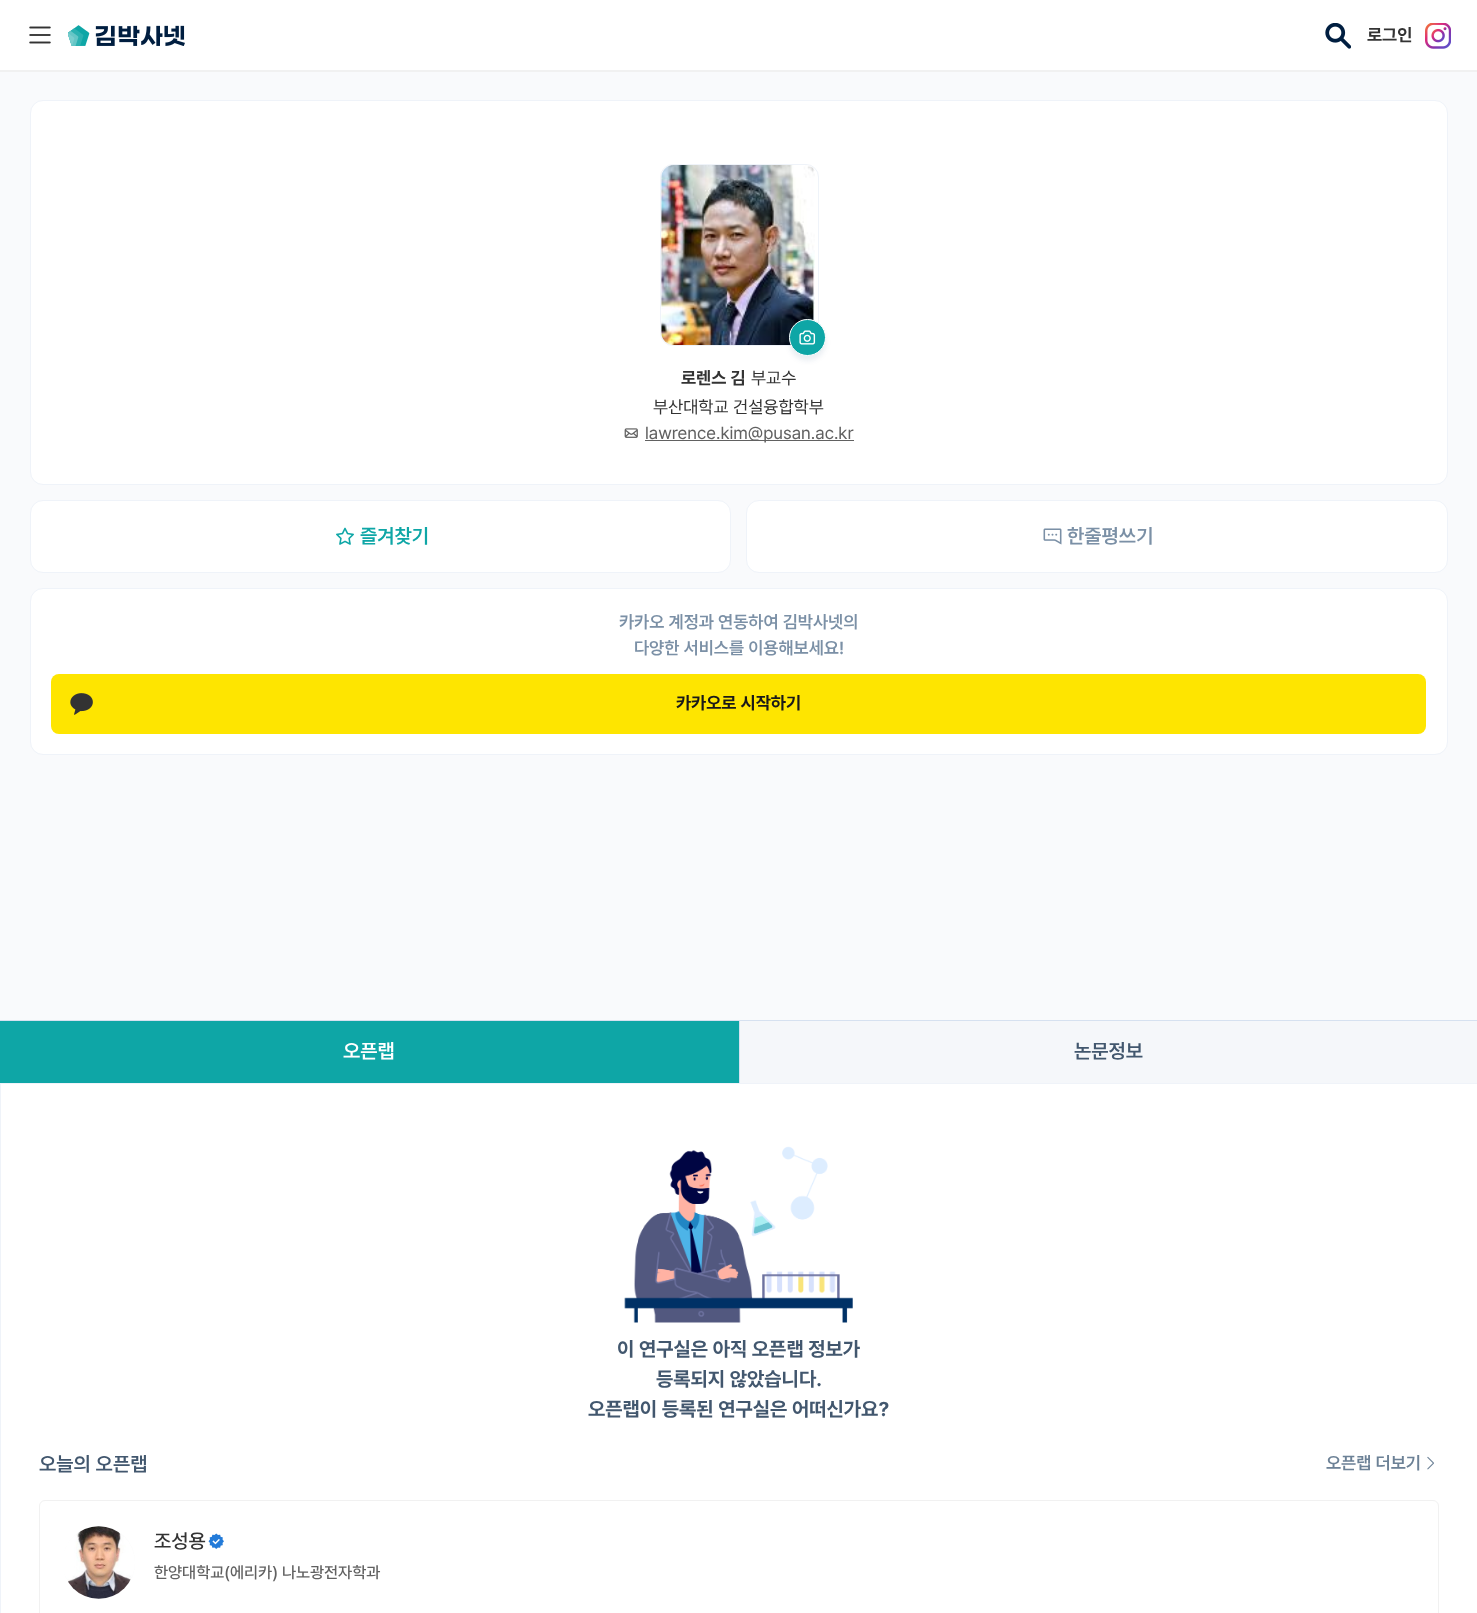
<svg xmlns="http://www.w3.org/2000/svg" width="1477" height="1613">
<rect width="100%" height="100%" fill="#f9fafc"/>
<rect width="1477" height="70" fill="#fff"/>
<rect y="70" width="1477" height="2" fill="#f1f1f1"/>
<image x="29" y="26" width="22" height="18" href="media/1.png"/>
<image x="68" y="25" width="117" height="21" href="media/2.png"/>
<image x="1325" y="23" width="26" height="26" href="media/3.png"/>
<text x="1367" y="41" style="font-family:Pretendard;font-size:17.5px;font-weight:bold;fill:#333">로그인</text>
<image x="1425" y="23" width="26" height="26" href="media/4.png"/>
<rect x="30.5" y="100.5" width="1417" height="384" rx="12.5" fill="#fff" stroke="#eff3f9"/>
<rect x="660.5" y="164.5" width="158" height="181" rx="12.5" fill="none" stroke="#eff3f9"/>
<image x="661" y="165" width="154" height="180" href="media/5.png"/>
<rect x="789" y="324" width="37" height="37" rx="18.5" fill="#00316614" filter="blur(2.5px)"/>
<circle cx="807.5" cy="337.5" r="18" fill="#0ea6a6" stroke="#fff"/>
<image x="799" y="330" width="17" height="15" href="media/6.png"/>
<text x="681" y="384" style="font-family:Pretendard;font-size:17.5px;font-weight:bold;fill:#333">로렌스 김</text>
<text x="751" y="384" style="font-family:Pretendard;font-size:17.5px;fill:#333">부교수</text>
<text x="653" y="413" style="font-family:Pretendard;font-size:17.5px;fill:#333">부산대학교 건설융합학부</text>
<image x="624" y="428" width="14" height="10" href="media/7.png"/>
<rect x="645" y="440" width="209" height="1" fill="#616161"/>
<text x="645" y="439" style="font-family:Pretendard;font-size:17.5px;fill:#616161">lawrence.kim@pusan.ac.kr</text>
<rect x="30.5" y="500.5" width="700" height="72" rx="12.5" fill="#fff" stroke="#eff3f9"/>
<image x="336" y="527" width="18" height="18" href="media/8.png"/>
<text x="360" y="543" style="font-family:Pretendard;font-size:20px;font-weight:600;fill:#0ea6a6">즐겨찾기</text>
<rect x="746.5" y="500.5" width="701" height="72" rx="12.5" fill="#fff" stroke="#eff3f9"/>
<image x="1043" y="528" width="19" height="17" href="media/9.png"/>
<text x="1067" y="543" style="font-family:Pretendard;font-size:20px;font-weight:600;fill:#7b90a6">한줄평쓰기</text>
<rect x="30.5" y="588.5" width="1417" height="166" rx="12.5" fill="#fff" stroke="#eff3f9"/>
<text x="619" y="628" style="font-family:Pretendard;font-size:17.5px;font-weight:600;fill:#7b90a6">카카오 계정과 연동하여 김박사넷의</text>
<text x="634" y="654" style="font-family:Pretendard;font-size:17.5px;font-weight:600;fill:#7b90a6">다양한 서비스를 이용해보세요!</text>
<rect x="51" y="674" width="1375" height="60" rx="8" fill="#fee500"/>
<image x="70" y="693" width="23" height="22" href="media/10.png"/>
<text x="676" y="709" style="font-family:Pretendard;font-size:17.5px;font-weight:bold;fill:#191919">카카오로 시작하기</text>
<rect y="1021" width="739" height="62" fill="#0ea6a6"/>
<rect y="1020" width="1477" height="1" fill="#d6e1f0"/>
<text x="343" y="1058" style="font-family:Pretendard;font-size:20px;font-weight:600;fill:#fff">오픈랩</text>
<rect x="740" y="1021" width="737" height="62" fill="#f5f7fa"/>
<rect x="739" y="1020" width="1" height="63" fill="#d6e1f0"/>
<text x="1074" y="1058" style="font-family:Pretendard;font-size:20px;font-weight:600;fill:#42576e">논문정보</text>
<rect x="0.5" y="1083.5" width="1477" height="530" fill="#fff" stroke="#eff3f9"/>
<image x="624" y="1146" width="229" height="177" href="media/11.png"/>
<text x="617" y="1356" style="font-family:Pretendard;font-size:20px;font-weight:bold;fill:#42576e">이 연구실은 아직 오픈랩 정보가</text>
<text x="656" y="1386" style="font-family:Pretendard;font-size:20px;font-weight:bold;fill:#42576e">등록되지 않았습니다.</text>
<text x="588" y="1416" style="font-family:Pretendard;font-size:20px;font-weight:bold;fill:#42576e">오픈랩이 등록된 연구실은 어떠신가요?</text>
<text x="39" y="1471" style="font-family:Pretendard;font-size:20px;font-weight:600;fill:#42576e">오늘의 오픈랩</text>
<text x="1326" y="1469" style="font-family:Pretendard;font-size:17.5px;font-weight:600;fill:#6c8196">오픈랩 더보기</text>
<image x="1427" y="1456" width="7" height="14" href="media/12.png"/>
<rect x="39.5" y="1500.5" width="1399" height="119" rx="5.5" fill="none" stroke="#f1f1f1"/>
<rect x="63" y="1526" width="72" height="73" rx="36" fill="#fafafa"/>
<image x="63" y="1526" width="72" height="73" href="media/13.png"/>
<text x="154" y="1548" style="font-family:Pretendard;font-size:20px;font-weight:500;fill:#333">조성용</text>
<image x="208" y="1533" width="16" height="16" href="media/14.png"/>
<text x="154" y="1578" style="font-family:Pretendard;font-size:16.25px;font-weight:500;fill:#616161">한양대학교(에리카) 나노광전자학과</text>
</svg>
